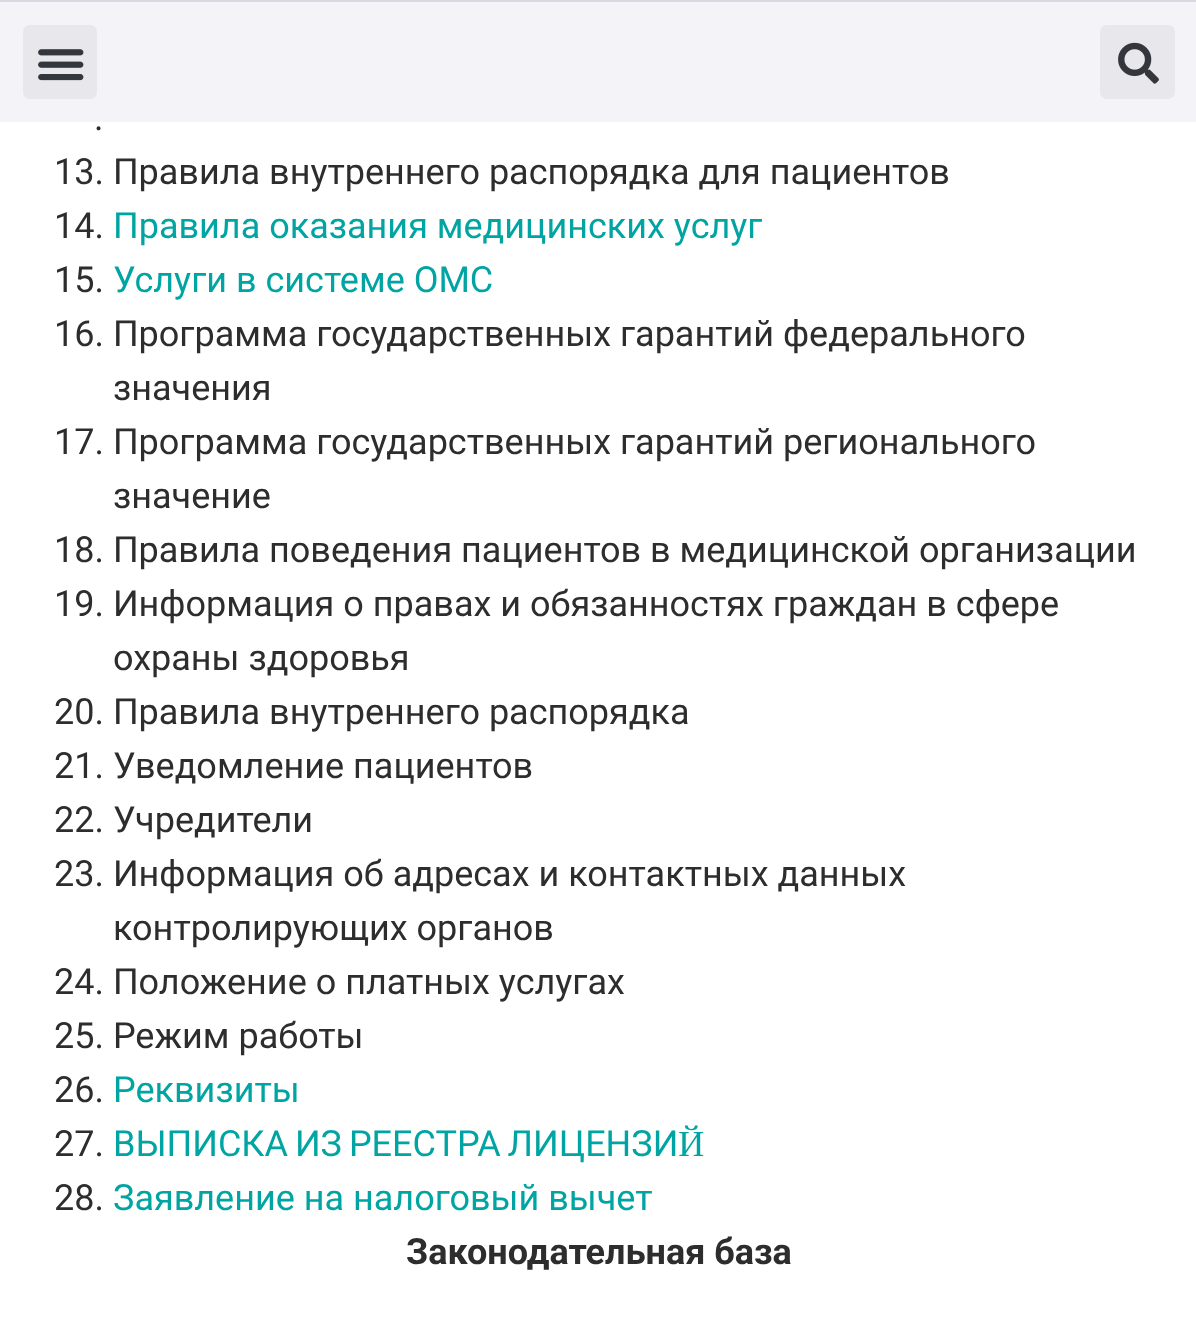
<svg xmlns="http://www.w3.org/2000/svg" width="1196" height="1332">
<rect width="100%" height="100%" fill="#fff"/>
<rect y="2" width="1196" height="120" fill="#f3f3f8"/>
<rect width="1196" height="2" fill="#d9d9e4"/>
<rect x="23" y="25" width="74" height="74" rx="7" fill="#e7e7ec"/>
<image x="38" y="49" width="46" height="32" href="media/1.png"/>
<rect x="1100" y="25" width="75" height="74" rx="7" fill="#e7e7ec"/>
<image x="1118" y="42" width="41" height="42" href="media/2.png"/>
<text x="94" y="130" style="font-family:Roboto;font-size:36px;fill:#2d2d2d">.</text>
<text x="54" y="184" style="font-family:Roboto;font-size:36px;fill:#2d2d2d">13. Правила внутреннего распорядка для пациентов</text>
<text x="54" y="238" style="font-family:Roboto;font-size:36px;fill:#2d2d2d">14.</text>
<text x="113" y="238" style="font-family:Roboto;font-size:36px;fill:#00a5a3">Правила оказания медицинских услуг</text>
<text x="54" y="292" style="font-family:Roboto;font-size:36px;fill:#2d2d2d">15.</text>
<text x="113" y="292" style="font-family:Roboto;font-size:36px;fill:#00a5a3">Услуги в системе ОМС</text>
<text x="54" y="346" style="font-family:Roboto;font-size:36px;fill:#2d2d2d">16. Программа государственных гарантий федерального</text>
<text x="113" y="400" style="font-family:Roboto;font-size:36px;fill:#2d2d2d">значения</text>
<text x="54" y="454" style="font-family:Roboto;font-size:36px;fill:#2d2d2d">17. Программа государственных гарантий регионального</text>
<text x="113" y="508" style="font-family:Roboto;font-size:36px;fill:#2d2d2d">значение</text>
<text x="54" y="562" style="font-family:Roboto;font-size:36px;fill:#2d2d2d">18. Правила поведения пациентов в медицинской организации</text>
<text x="54" y="616" style="font-family:Roboto;font-size:36px;fill:#2d2d2d">19. Информация о правах и обязанностях граждан в сфере</text>
<text x="113" y="670" style="font-family:Roboto;font-size:36px;fill:#2d2d2d">охраны здоровья</text>
<text x="54" y="724" style="font-family:Roboto;font-size:36px;fill:#2d2d2d">20. Правила внутреннего распорядка</text>
<text x="54" y="778" style="font-family:Roboto;font-size:36px;fill:#2d2d2d">21. Уведомление пациентов</text>
<text x="54" y="832" style="font-family:Roboto;font-size:36px;fill:#2d2d2d">22. Учредители</text>
<text x="54" y="886" style="font-family:Roboto;font-size:36px;fill:#2d2d2d">23. Информация об адресах и контактных данных</text>
<text x="113" y="940" style="font-family:Roboto;font-size:36px;fill:#2d2d2d">контролирующих органов</text>
<text x="54" y="994" style="font-family:Roboto;font-size:36px;fill:#2d2d2d">24. Положение о платных услугах</text>
<text x="54" y="1048" style="font-family:Roboto;font-size:36px;fill:#2d2d2d">25. Режим работы</text>
<text x="54" y="1102" style="font-family:Roboto;font-size:36px;fill:#2d2d2d">26.</text>
<text x="113" y="1102" style="font-family:Roboto;font-size:36px;fill:#00a5a3">Реквизиты</text>
<text x="54" y="1156" style="font-family:Roboto;font-size:36px;fill:#2d2d2d">27.</text>
<text x="113" y="1156" word-spacing="-2" style="font-family:Roboto;font-size:36px;fill:#00a5a3">ВЫПИСКА ИЗ РЕЕСТРА ЛИЦЕНЗИЙ</text>
<text x="54" y="1210" style="font-family:Roboto;font-size:36px;fill:#2d2d2d">28.</text>
<text x="113" y="1210" style="font-family:Roboto;font-size:36px;fill:#00a5a3">Заявление на налоговый вычет</text>
<text x="406" y="1264" style="font-family:Roboto;font-size:36px;font-weight:bold;fill:#2d2d2d">Законодательная база</text>
</svg>
